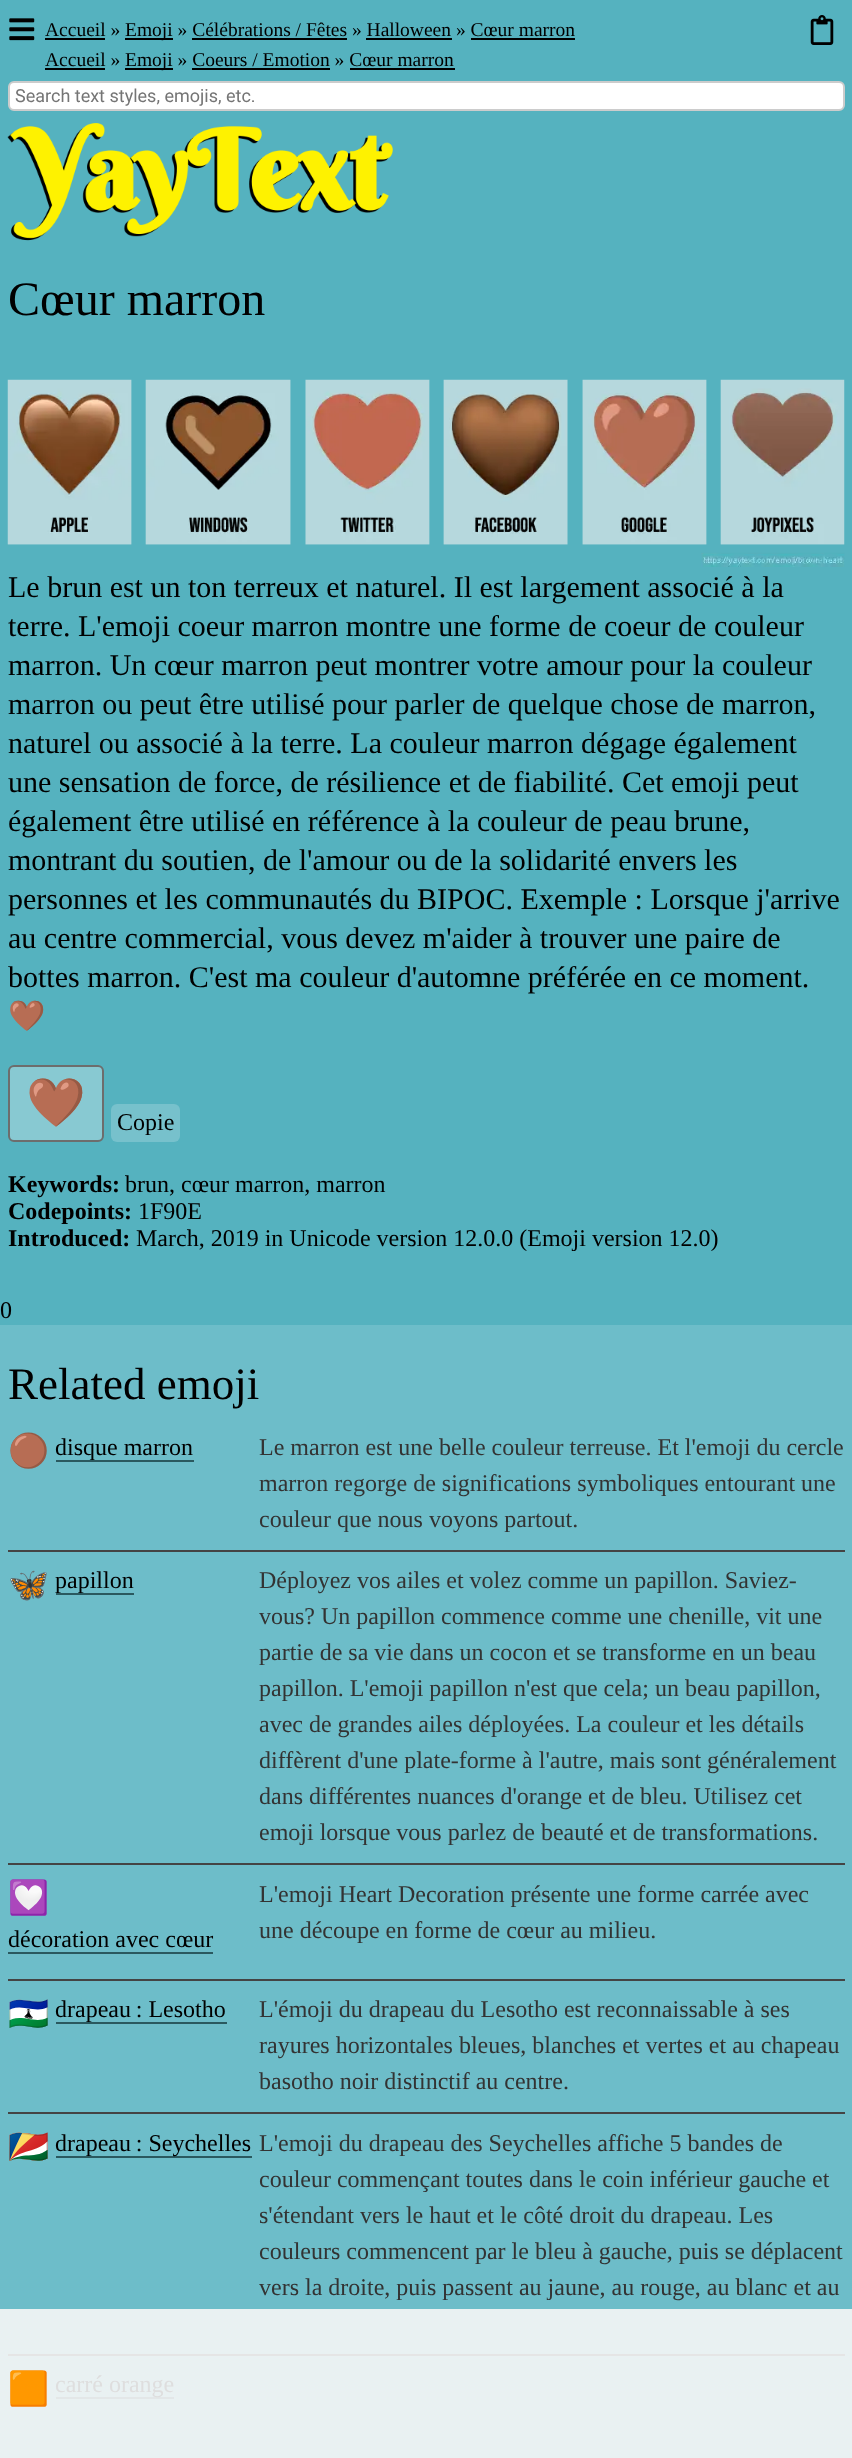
<svg xmlns="http://www.w3.org/2000/svg" width="852" height="2458">
<rect width="100%" height="100%" fill="#55b2bf"/>
<image x="9" y="18" width="26" height="23" href="media/1.png"/>
<text x="45" y="36" style="font-family:Liberation Serif;font-size:19.5px;fill:#000">Accueil »</text>
<rect x="45" y="38" width="60" height="2" fill="#000"/>
<rect x="125" y="38" width="48" height="2" fill="#000"/>
<text x="125" y="36" style="font-family:Liberation Serif;font-size:19.5px;fill:#000">Emoji » Célébrations / Fêtes » Halloween » Cœur marron</text>
<rect x="192" y="38" width="155" height="2" fill="#000"/>
<rect x="366" y="38" width="86" height="2" fill="#000"/>
<rect x="471" y="38" width="104" height="2" fill="#000"/>
<text x="45" y="66" style="font-family:Liberation Serif;font-size:19.5px;fill:#000">Accueil »</text>
<rect x="45" y="68" width="60" height="2" fill="#000"/>
<rect x="125" y="68" width="48" height="2" fill="#000"/>
<text x="125" y="66" style="font-family:Liberation Serif;font-size:19.5px;fill:#000">Emoji » Coeurs / Emotion » Cœur marron</text>
<rect x="192" y="68" width="138" height="2" fill="#000"/>
<rect x="350" y="68" width="105" height="2" fill="#000"/>
<image x="810" y="15" width="24" height="30" href="media/2.png"/>
<rect x="9" y="82" width="835" height="28" rx="5" fill="#fff" stroke="#ccc" stroke-width="2"/>
<text x="15" y="102" style="font-family:Roboto;font-size:18px;fill:#757575">Search text styles, emojis, etc.</text>
<image x="7" y="123" width="386" height="118" href="media/3.png"/>
<text x="8" y="315" style="font-family:Liberation Serif;font-size:48px;fill:#000">Cœur marron</text>
<image x="7" y="379" width="838" height="188" href="media/4.png"/>
<text x="8" y="597" style="font-family:Liberation Serif;font-size:30px;fill:#000">Le brun est un ton terreux et naturel. Il est largement associé à la</text>
<text x="8" y="636" style="font-family:Liberation Serif;font-size:30px;fill:#000">terre. L'emoji coeur marron montre une forme de coeur de couleur</text>
<text x="8" y="675" style="font-family:Liberation Serif;font-size:30px;fill:#000">marron. Un cœur marron peut montrer votre amour pour la couleur</text>
<text x="8" y="714" style="font-family:Liberation Serif;font-size:30px;fill:#000">marron ou peut être utilisé pour parler de quelque chose de marron,</text>
<text x="8" y="753" style="font-family:Liberation Serif;font-size:30px;fill:#000">naturel ou associé à la terre. La couleur marron dégage également</text>
<text x="8" y="792" style="font-family:Liberation Serif;font-size:30px;fill:#000">une sensation de force, de résilience et de fiabilité. Cet emoji peut</text>
<text x="8" y="831" style="font-family:Liberation Serif;font-size:30px;fill:#000">également être utilisé en référence à la couleur de peau brune,</text>
<text x="8" y="870" style="font-family:Liberation Serif;font-size:30px;fill:#000">montrant du soutien, de l'amour ou de la solidarité envers les</text>
<text x="8" y="909" style="font-family:Liberation Serif;font-size:30px;fill:#000">personnes et les communautés du BIPOC. Exemple : Lorsque j'arrive</text>
<text x="8" y="948" style="font-family:Liberation Serif;font-size:30px;fill:#000">au centre commercial, vous devez m'aider à trouver une paire de</text>
<text x="8" y="987" style="font-family:Liberation Serif;font-size:30px;fill:#000">bottes marron. C'est ma couleur d'automne préférée en ce moment.</text>
<text x="8" y="1026" style="font-family:Noto Color Emoji;font-size:30px;fill:#000">🤎</text>
<rect x="9" y="1066" width="94" height="75" rx="5" fill="#88c9d2" stroke="#6d6d6d" stroke-width="2"/>
<text x="26" y="1119" style="font-family:Noto Color Emoji;font-size:48px;fill:#000">🤎</text>
<rect x="111" y="1104" width="69" height="38" rx="6" fill="#77c1cc"/>
<text x="117" y="1130" style="font-family:Liberation Serif;font-size:24px;fill:#000">Copie</text>
<text x="8" y="1192" style="font-family:Liberation Serif;font-size:24px;font-weight:bold;fill:#000">Keywords:</text>
<text x="125" y="1192" style="font-family:Liberation Serif;font-size:24px;fill:#000">brun, cœur marron, marron</text>
<text x="8" y="1219" style="font-family:Liberation Serif;font-size:24px;font-weight:bold;fill:#000">Codepoints:</text>
<text x="138" y="1219" style="font-family:Liberation Serif;font-size:24px;fill:#000">1F90E</text>
<text x="8" y="1246" style="font-family:Liberation Serif;font-size:24px;font-weight:bold;fill:#000">Introduced:</text>
<text x="136" y="1246" style="font-family:Liberation Serif;font-size:24px;fill:#000">March, 2019 in Unicode version 12.0.0 (Emoji version 12.0)</text>
<text x="0" y="1318" style="font-family:Liberation Serif;font-size:24px;fill:#000">0</text>
<rect y="1325" width="852" height="984" fill="#6dbdc9"/>
<rect y="2309" width="852" height="149" fill="#e9f1f2"/>
<text x="8" y="1399" style="font-family:Liberation Serif;font-size:45px;fill:#000">Related emoji</text>
<rect x="8" y="1550" width="837" height="2" fill="#444"/>
<text x="8" y="1462" style="font-family:Noto Color Emoji;font-size:33px;fill:#000">🟤</text>
<rect x="56" y="1460" width="138" height="2" fill="#2a595f"/>
<text x="55" y="1455" style="font-family:Liberation Serif;font-size:24px;fill:#000">disque marron</text>
<text x="259" y="1455" style="font-family:Liberation Serif;font-size:24px;fill:#333">Le marron est une belle couleur terreuse. Et l'emoji du cercle</text>
<text x="259" y="1491" style="font-family:Liberation Serif;font-size:24px;fill:#333">marron regorge de significations symboliques entourant une</text>
<text x="259" y="1527" style="font-family:Liberation Serif;font-size:24px;fill:#333">couleur que nous voyons partout.</text>
<rect x="8" y="1863" width="837" height="2" fill="#444"/>
<text x="8" y="1596" style="font-family:Noto Color Emoji;font-size:33px;fill:#000">🦋</text>
<rect x="56" y="1593" width="78" height="2" fill="#2a595f"/>
<text x="55" y="1588" style="font-family:Liberation Serif;font-size:24px;fill:#000">papillon</text>
<text x="259" y="1588" style="font-family:Liberation Serif;font-size:24px;fill:#333">Déployez vos ailes et volez comme un papillon. Saviez-</text>
<text x="259" y="1624" style="font-family:Liberation Serif;font-size:24px;fill:#333">vous? Un papillon commence comme une chenille, vit une</text>
<text x="259" y="1660" style="font-family:Liberation Serif;font-size:24px;fill:#333">partie de sa vie dans un cocon et se transforme en un beau</text>
<text x="259" y="1696" style="font-family:Liberation Serif;font-size:24px;fill:#333">papillon. L'emoji papillon n'est que cela; un beau papillon,</text>
<text x="259" y="1732" style="font-family:Liberation Serif;font-size:24px;fill:#333">avec de grandes ailes déployées. La couleur et les détails</text>
<text x="259" y="1768" style="font-family:Liberation Serif;font-size:24px;fill:#333">diffèrent d'une plate-forme à l'autre, mais sont généralement</text>
<text x="259" y="1804" style="font-family:Liberation Serif;font-size:24px;fill:#333">dans différentes nuances d'orange et de bleu. Utilisez cet</text>
<text x="259" y="1840" style="font-family:Liberation Serif;font-size:24px;fill:#333">emoji lorsque vous parlez de beauté et de transformations.</text>
<rect x="8" y="1979" width="837" height="2" fill="#444"/>
<text x="8" y="1909" style="font-family:Noto Color Emoji;font-size:33px;fill:#000">💟</text>
<text x="8" y="1947" style="font-family:Liberation Serif;font-size:24px;fill:#000">décoration avec cœur</text>
<rect x="8" y="1952" width="205" height="2" fill="#2a595f"/>
<text x="259" y="1902" style="font-family:Liberation Serif;font-size:24px;fill:#333">L'emoji Heart Decoration présente une forme carrée avec</text>
<text x="259" y="1938" style="font-family:Liberation Serif;font-size:24px;fill:#333">une découpe en forme de cœur au milieu.</text>
<rect x="8" y="2112" width="837" height="2" fill="#444"/>
<text x="8" y="2025" style="font-family:Noto Color Emoji;font-size:33px;fill:#000">🇱🇸</text>
<rect x="56" y="2022" width="171" height="2" fill="#2a595f"/>
<text x="55" y="2017" style="font-family:Liberation Serif;font-size:24px;fill:#000">drapeau : Lesotho</text>
<text x="259" y="2017" style="font-family:Liberation Serif;font-size:24px;fill:#333">L'émoji du drapeau du Lesotho est reconnaissable à ses</text>
<text x="259" y="2053" style="font-family:Liberation Serif;font-size:24px;fill:#333">rayures horizontales bleues, blanches et vertes et au chapeau</text>
<text x="259" y="2089" style="font-family:Liberation Serif;font-size:24px;fill:#333">basotho noir distinctif au centre.</text>
<rect x="8" y="2354" width="837" height="2" fill="#e5e5e5"/>
<text x="8" y="2158" style="font-family:Noto Color Emoji;font-size:33px;fill:#000">🇸🇨</text>
<rect x="56" y="2156" width="196" height="2" fill="#2a595f"/>
<text x="55" y="2151" style="font-family:Liberation Serif;font-size:24px;fill:#000">drapeau : Seychelles</text>
<text x="259" y="2151" style="font-family:Liberation Serif;font-size:24px;fill:#333">L'emoji du drapeau des Seychelles affiche 5 bandes de</text>
<text x="259" y="2187" style="font-family:Liberation Serif;font-size:24px;fill:#333">couleur commençant toutes dans le coin inférieur gauche et</text>
<text x="259" y="2223" style="font-family:Liberation Serif;font-size:24px;fill:#333">s'étendant vers le haut et le côté droit du drapeau. Les</text>
<text x="259" y="2259" style="font-family:Liberation Serif;font-size:24px;fill:#333">couleurs commencent par le bleu à gauche, puis se déplacent</text>
<text x="259" y="2295" style="font-family:Liberation Serif;font-size:24px;fill:#333">vers la droite, puis passent au jaune, au rouge, au blanc et au</text>
<text x="8" y="2400" style="font-family:Noto Color Emoji;font-size:33px;fill:#dedede">🟧</text>
<rect x="56" y="2397" width="118" height="2" fill="#e3e7e8"/>
<text x="55" y="2392" style="font-family:Liberation Serif;font-size:24px;fill:#dedede">carré orange</text>
</svg>
